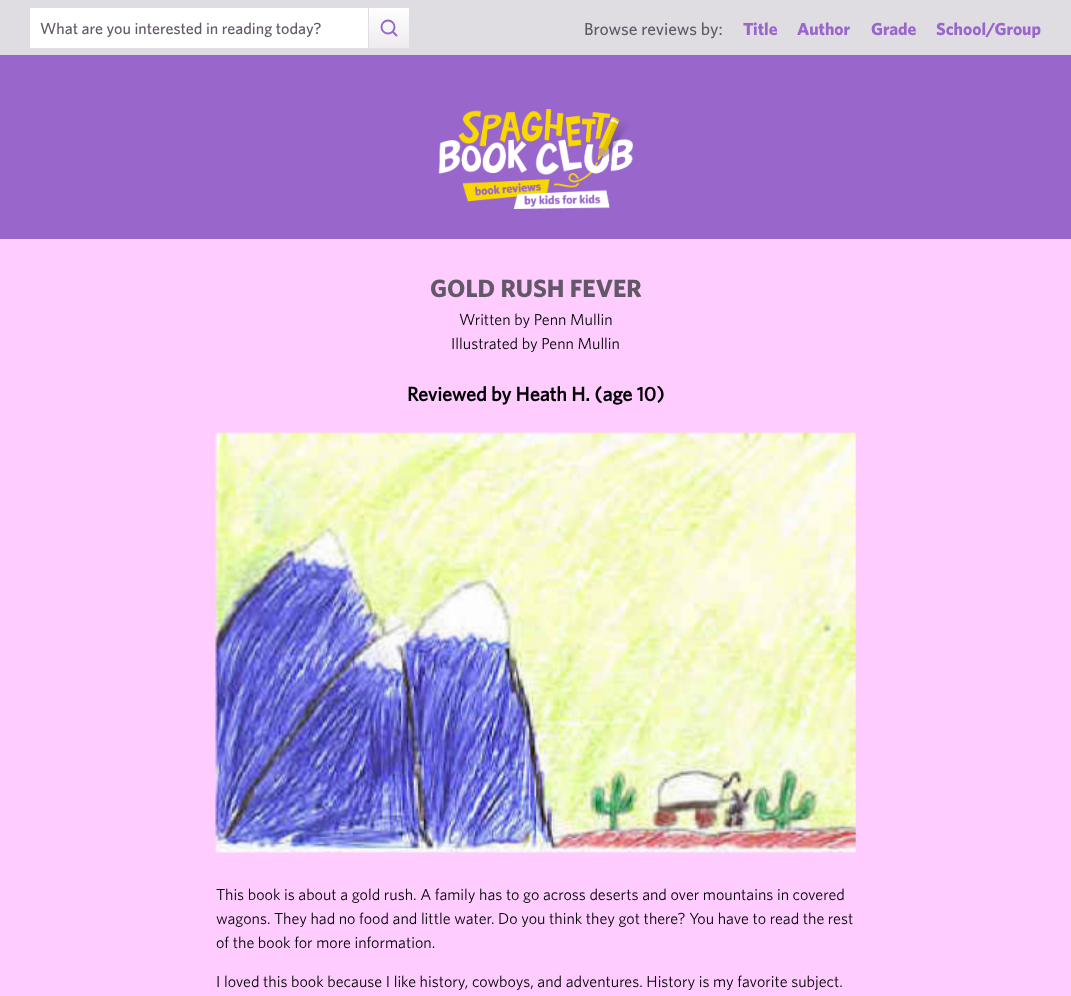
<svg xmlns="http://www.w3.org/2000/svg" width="1071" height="996">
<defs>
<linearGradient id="g1" gradientUnits="userSpaceOnUse" x1="370" y1="48" x2="370" y2="-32"><stop offset="0" stop-color="#edebee"/><stop offset="0.5" stop-color="#fff"/></linearGradient>
</defs>
<rect width="100%" height="100%" fill="#96c"/>
<rect width="1071" height="55" fill="#e0dde2"/>
<rect x="30" y="8" width="338" height="40" fill="#fff"/>
<text x="40" y="34" style="font-family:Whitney;font-size:16px;font-weight:500;fill:#625868">What are you interested in reading today?</text>
<rect x="369" y="8" width="40" height="40" fill="url(#g1)"/>
<circle cx="388" cy="27" r="6.5" fill="none" stroke="#96c" stroke-width="1.9"/>
<path d="M396.5 35.5l-3.5-3.5" fill="none" stroke="#96c" stroke-width="1.9" stroke-linecap="round" stroke-linejoin="round"/>
<text x="584" y="35" style="font-family:Whitney;font-size:17.5px;font-weight:500;fill:#625868">Browse reviews by:</text>
<text x="743" y="35" style="font-family:Whitney;font-size:17.5px;font-weight:bold;fill:#96c">Title</text>
<text x="797" y="35" style="font-family:Whitney;font-size:17.5px;font-weight:bold;fill:#96c">Author</text>
<text x="871" y="35" style="font-family:Whitney;font-size:17.5px;font-weight:bold;fill:#96c">Grade</text>
<text x="936" y="35" style="font-family:Whitney;font-size:17.5px;font-weight:bold;fill:#96c">School/Group</text>
<image x="438" y="109" width="195" height="100" href="media/1.png"/>
<rect y="239" width="1071" height="757" fill="#fcf"/>
<text x="430" y="297" style="font-family:Whitney;font-size:25px;font-weight:bold;fill:#625868">GOLD RUSH FEVER</text>
<text x="459" y="325" style="font-family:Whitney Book;font-size:16px;fill:#000">Written by Penn Mullin</text>
<text x="451" y="349" style="font-family:Whitney Book;font-size:16px;fill:#000">Illustrated by Penn Mullin</text>
<text x="407" y="401" style="font-family:'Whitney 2';font-size:20px;font-weight:bold;fill:#000">Reviewed by Heath H. (age 10)</text>
<image x="215" y="432" width="641" height="421" href="media/2.png"/>
<text x="216" y="900" style="font-family:Whitney Book;font-size:16px;fill:#000">This book is about a gold rush. A family has to go across deserts and over mountains in covered</text>
<text x="216" y="924" style="font-family:Whitney Book;font-size:16px;fill:#000">wagons. They had no food and little water. Do you think they got there? You have to read the rest</text>
<text x="216" y="948" style="font-family:Whitney Book;font-size:16px;fill:#000">of the book for more information.</text>
<text x="216" y="987" style="font-family:Whitney Book;font-size:16px;fill:#000">I loved this book because I like history, cowboys, and adventures. History is my favorite subject.</text>
</svg>
